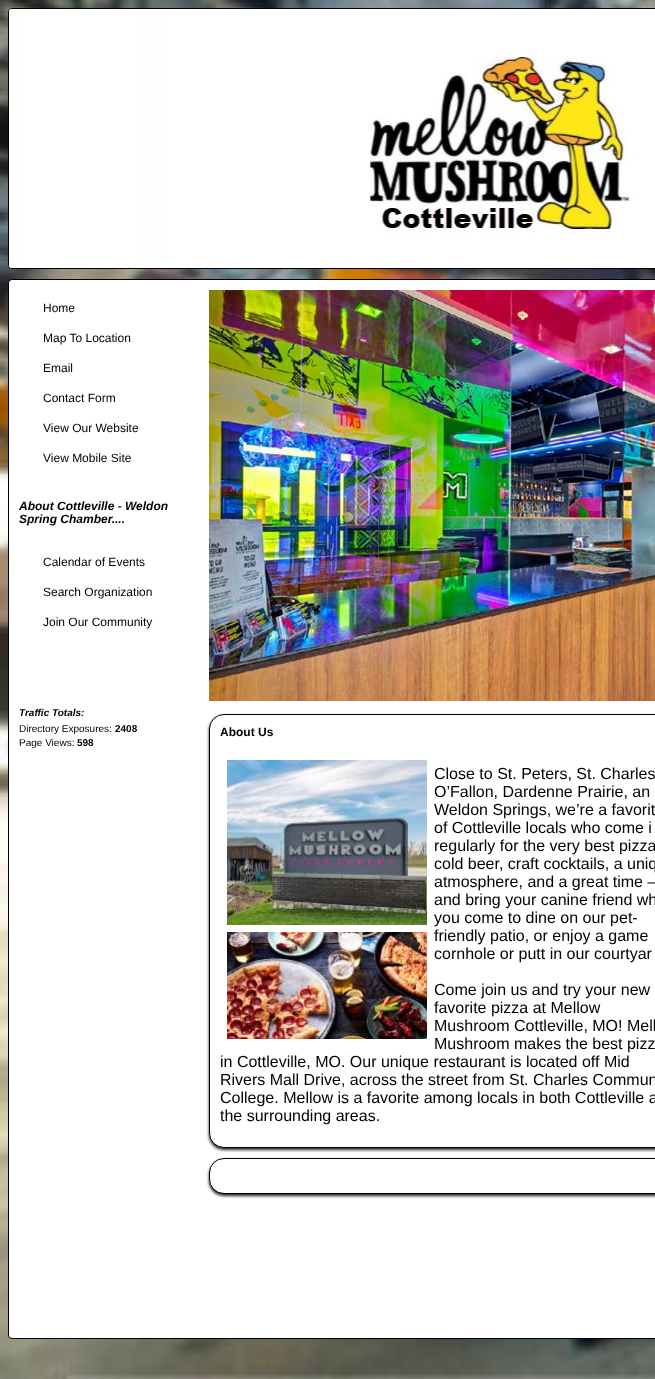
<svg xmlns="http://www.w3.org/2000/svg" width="655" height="1379">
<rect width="100%" height="100%" fill="#fff"/>
<image x="0" y="0" width="655" height="1379" href="media/1.png"/>
<rect x="8.5" y="8.5" width="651" height="260" rx="3.5" fill="#fff" stroke="#000"/>
<image x="9" y="9" width="625" height="259" href="media/2.png"/>
<rect x="8.5" y="279.5" width="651" height="1059" rx="3.5" fill="#fff" stroke="#000"/>
<text x="43" y="312" style="font-family:Liberation Sans;font-size:12px;fill:#000">Home</text>
<text x="43" y="342" style="font-family:Liberation Sans;font-size:12px;fill:#000">Map To Location</text>
<text x="43" y="372" style="font-family:Liberation Sans;font-size:12px;fill:#000">Email</text>
<text x="43" y="402" style="font-family:Liberation Sans;font-size:12px;fill:#000">Contact Form</text>
<text x="43" y="432" style="font-family:Liberation Sans;font-size:12px;fill:#000">View Our Website</text>
<text x="43" y="462" style="font-family:Liberation Sans;font-size:12px;fill:#000">View Mobile Site</text>
<text x="19" y="510" style="font-family:Liberation Sans;font-size:12px;font-weight:bold;font-style:italic;fill:#000">About Cottleville - Weldon</text>
<text x="19" y="523" style="font-family:Liberation Sans;font-size:12px;font-weight:bold;font-style:italic;fill:#000">Spring Chamber....</text>
<text x="43" y="566" style="font-family:Liberation Sans;font-size:12px;fill:#000">Calendar of Events</text>
<text x="43" y="596" style="font-family:Liberation Sans;font-size:12px;fill:#000">Search Organization</text>
<text x="43" y="626" style="font-family:Liberation Sans;font-size:12px;fill:#000">Join Our Community</text>
<text x="19" y="716" style="font-family:Liberation Sans;font-size:10px;font-weight:bold;font-style:italic;fill:#000">Traffic Totals:</text>
<text x="19" y="732" style="font-family:Liberation Sans;font-size:10px;fill:#000">Directory Exposures:</text>
<text x="115" y="732" style="font-family:Liberation Sans;font-size:10px;font-weight:bold;fill:#000">2408</text>
<text x="19" y="746" style="font-family:Liberation Sans;font-size:10px;fill:#000">Page Views:</text>
<text x="77" y="746" style="font-family:Liberation Sans;font-size:10px;font-weight:bold;fill:#000">598</text>
<image x="209" y="290" width="446" height="411" href="media/3.png"/>
<rect x="209" y="716" width="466" height="434" rx="15" fill="#222" filter="blur(1.5px)"/>
<rect x="209.5" y="714.5" width="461" height="433" rx="14.5" fill="#fff" stroke="#000"/>
<text x="220" y="736" style="font-family:Liberation Sans;font-size:12px;font-weight:bold;fill:#000">About Us</text>
<image x="227" y="760" width="200" height="165" href="media/4.png"/>
<image x="227" y="932" width="200" height="107" href="media/5.png"/>
<text x="434" y="779" style="font-family:Liberation Sans;font-size:16px;fill:#000">Close to St. Peters, St. Charles</text>
<text x="434" y="797" style="font-family:Liberation Sans;font-size:16px;fill:#000">O’Fallon, Dardenne Prairie, an</text>
<text x="434" y="815" style="font-family:Liberation Sans;font-size:16px;fill:#000">Weldon Springs, we’re a favorit</text>
<text x="434" y="833" style="font-family:Liberation Sans;font-size:16px;fill:#000">of Cottleville locals who come i</text>
<text x="434" y="851" style="font-family:Liberation Sans;font-size:16px;fill:#000">regularly for the very best pizza</text>
<text x="434" y="869" style="font-family:Liberation Sans;font-size:16px;fill:#000">cold beer, craft cocktails, a uniq</text>
<text x="434" y="887" style="font-family:Liberation Sans;font-size:16px;fill:#000">atmosphere, and a great time –</text>
<text x="434" y="905" style="font-family:Liberation Sans;font-size:16px;fill:#000">and bring your canine friend wh</text>
<text x="434" y="923" style="font-family:Liberation Sans;font-size:16px;fill:#000">you come to dine on our pet-</text>
<text x="434" y="941" style="font-family:Liberation Sans;font-size:16px;fill:#000">friendly patio, or enjoy a game</text>
<text x="434" y="959" style="font-family:Liberation Sans;font-size:16px;fill:#000">cornhole or putt in our courtyar</text>
<text x="434" y="995" style="font-family:Liberation Sans;font-size:16px;fill:#000">Come join us and try your new</text>
<text x="434" y="1013" style="font-family:Liberation Sans;font-size:16px;fill:#000">favorite pizza at Mellow</text>
<text x="434" y="1031" style="font-family:Liberation Sans;font-size:16px;fill:#000">Mushroom Cottleville, MO! Mell</text>
<text x="434" y="1049" style="font-family:Liberation Sans;font-size:16px;fill:#000">Mushroom makes the best pizz</text>
<text x="220" y="1067" style="font-family:Liberation Sans;font-size:16px;fill:#000">in Cottleville, MO. Our unique restaurant is located off Mid</text>
<text x="220" y="1085" style="font-family:Liberation Sans;font-size:16px;fill:#000">Rivers Mall Drive, across the street from St. Charles Commun</text>
<text x="220" y="1103" style="font-family:Liberation Sans;font-size:16px;fill:#000">College. Mellow is a favorite among locals in both Cottleville a</text>
<text x="220" y="1121" style="font-family:Liberation Sans;font-size:16px;fill:#000">the surrounding areas.</text>
<rect x="209" y="1160" width="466" height="36" rx="15" fill="#222" filter="blur(1.5px)"/>
<rect x="209.5" y="1158.5" width="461" height="35" rx="14.5" fill="#fff" stroke="#000"/>
</svg>
